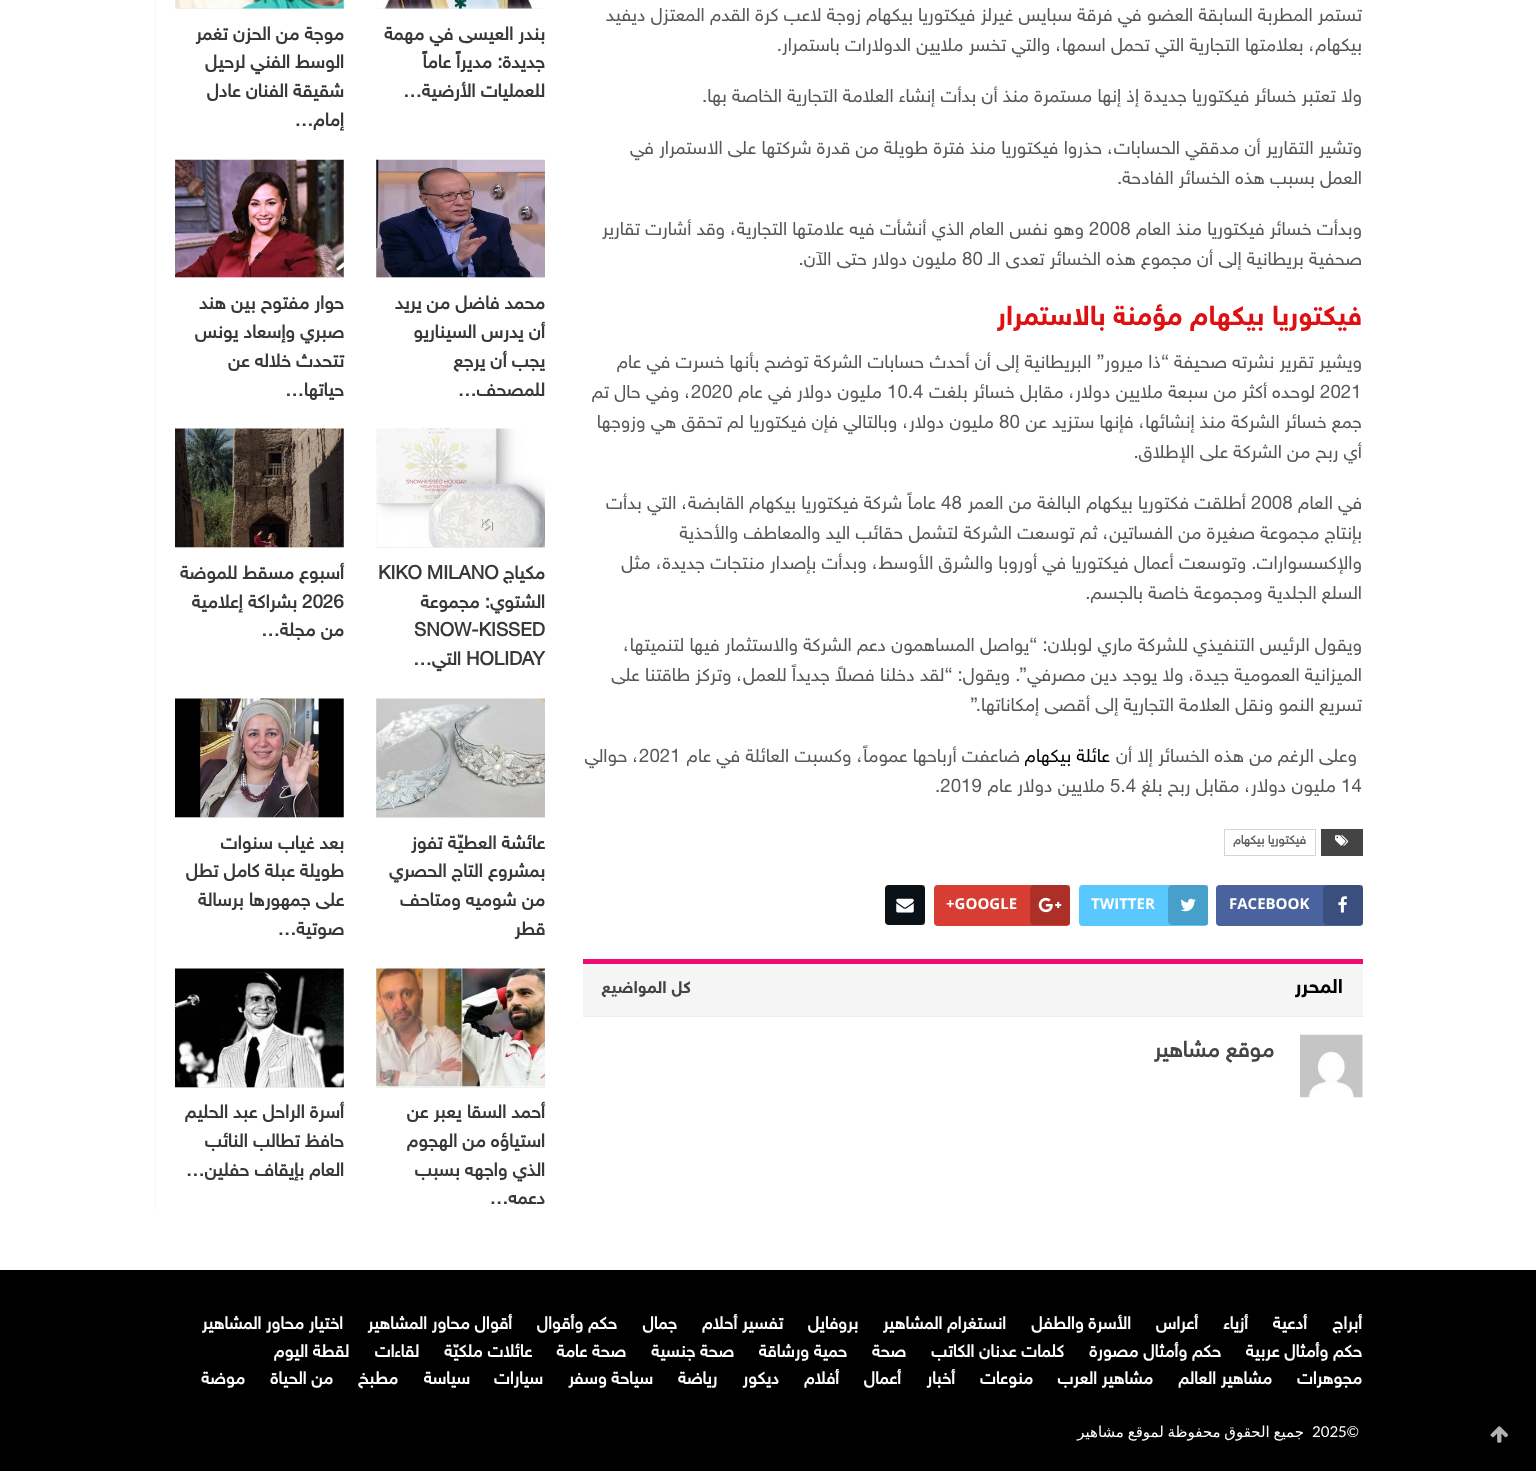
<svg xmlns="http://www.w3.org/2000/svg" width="1536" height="1471">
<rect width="100%" height="100%" fill="#fff"/>
<rect y="1270" width="1536" height="201" fill="#000"/>
<image x="1490" y="1426" width="18" height="17" href="media/1.png"/>
<text x="1362" y="21" style="font-family:'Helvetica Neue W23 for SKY';font-size:18.75px;direction:rtl;fill:#585858">تستمر المطربة السابقة العضو في فرقة سبايس غيرلز فيكتوريا بيكهام زوجة لاعب كرة القدم المعتزل ديفيد</text>
<text x="1362" y="51" style="font-family:'Helvetica Neue W23 for SKY';font-size:18.75px;direction:rtl;fill:#585858">بيكهام، بعلامتها التجارية التي تحمل اسمها، والتي تخسر ملايين الدولارات باستمرار.</text>
<text x="1362" y="102" style="font-family:'Helvetica Neue W23 for SKY';font-size:18.75px;direction:rtl;fill:#585858">ولا تعتبر خسائر فيكتوريا جديدة إذ إنها مستمرة منذ أن بدأت إنشاء العلامة التجارية الخاصة بها.</text>
<text x="1362" y="154" style="font-family:'Helvetica Neue W23 for SKY';font-size:18.75px;direction:rtl;fill:#585858">وتشير التقارير أن مدققي الحسابات، حذروا فيكتوريا منذ فترة طويلة من قدرة شركتها على الاستمرار في</text>
<text x="1362" y="184" style="font-family:'Helvetica Neue W23 for SKY';font-size:18.75px;direction:rtl;fill:#585858">العمل بسبب هذه الخسائر الفادحة.</text>
<text x="1362" y="235" style="font-family:'Helvetica Neue W23 for SKY';font-size:18.75px;direction:rtl;fill:#585858">وبدأت خسائر فيكتوريا منذ العام</text>
<text x="1089" y="235" style="font-family:'Helvetica Neue W23 for SKY';font-size:18.75px;fill:#585858">2008</text>
<text x="1084" y="235" style="font-family:'Helvetica Neue W23 for SKY';font-size:18.75px;direction:rtl;fill:#585858">وهو نفس العام الذي أنشأت فيه علامتها التجارية، وقد أشارت تقارير</text>
<text x="1362" y="265" style="font-family:'Helvetica Neue W23 for SKY';font-size:18.75px;direction:rtl;fill:#585858">صحفية بريطانية إلى أن مجموع هذه الخسائر تعدى الـ</text>
<text x="962" y="265" style="font-family:'Helvetica Neue W23 for SKY';font-size:18.75px;fill:#585858">80</text>
<text x="957" y="265" style="font-family:'Helvetica Neue W23 for SKY';font-size:18.75px;direction:rtl;fill:#585858">مليون دولار حتى الآن.</text>
<text x="1362" y="325" style="font-family:'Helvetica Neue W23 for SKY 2';font-size:27.5px;font-weight:bold;direction:rtl;fill:#d11">فيكتوريا بيكهام مؤمنة بالاستمرار</text>
<text x="1362" y="368" style="font-family:'Helvetica Neue W23 for SKY';font-size:18.75px;direction:rtl;fill:#585858">ويشير تقرير نشرته صحيفة “ذا ميرور” البريطانية إلى أن أحدث حسابات الشركة توضح بأنها خسرت في عام</text>
<text x="1320" y="398" style="font-family:'Helvetica Neue W23 for SKY';font-size:18.75px;fill:#585858">2021</text>
<text x="1315" y="398" style="font-family:'Helvetica Neue W23 for SKY';font-size:18.75px;direction:rtl;fill:#585858">لوحده أكثر من سبعة ملايين دولار، مقابل خسائر بلغت</text>
<text x="887" y="398" style="font-family:'Helvetica Neue W23 for SKY';font-size:18.75px;fill:#585858">10.4</text>
<text x="882" y="398" style="font-family:'Helvetica Neue W23 for SKY';font-size:18.75px;direction:rtl;fill:#585858">مليون دولار في عام</text>
<text x="691" y="398" style="font-family:'Helvetica Neue W23 for SKY';font-size:18.75px;fill:#585858">2020</text>
<text x="691" y="398" style="font-family:'Helvetica Neue W23 for SKY';font-size:18.75px;direction:rtl;fill:#585858">، وفي حال تم</text>
<text x="1362" y="428" style="font-family:'Helvetica Neue W23 for SKY';font-size:18.75px;direction:rtl;fill:#585858">جمع خسائر الشركة منذ إنشائها، فإنها ستزيد عن</text>
<text x="999" y="428" style="font-family:'Helvetica Neue W23 for SKY';font-size:18.75px;fill:#585858">80</text>
<text x="994" y="428" style="font-family:'Helvetica Neue W23 for SKY';font-size:18.75px;direction:rtl;fill:#585858">مليون دولار، وبالتالي فإن فيكتوريا لم تحقق هي وزوجها</text>
<text x="1362" y="458" style="font-family:'Helvetica Neue W23 for SKY';font-size:18.75px;direction:rtl;fill:#585858">أي ربح من الشركة على الإطلاق.</text>
<text x="1362" y="509" style="font-family:'Helvetica Neue W23 for SKY';font-size:18.75px;direction:rtl;fill:#585858">في العام</text>
<text x="1251" y="509" style="font-family:'Helvetica Neue W23 for SKY';font-size:18.75px;fill:#585858">2008</text>
<text x="1246" y="509" style="font-family:'Helvetica Neue W23 for SKY';font-size:18.75px;direction:rtl;fill:#585858">أطلقت فكتوريا بيكهام البالغة من العمر</text>
<text x="941" y="509" style="font-family:'Helvetica Neue W23 for SKY';font-size:18.75px;fill:#585858">48</text>
<text x="936" y="509" style="font-family:'Helvetica Neue W23 for SKY';font-size:18.75px;direction:rtl;fill:#585858">عاماً شركة فيكتوريا بيكهام القابضة، التي بدأت</text>
<text x="1362" y="539" style="font-family:'Helvetica Neue W23 for SKY';font-size:18.75px;direction:rtl;fill:#585858">بإنتاج مجموعة صغيرة من الفساتين، ثم توسعت الشركة لتشمل حقائب اليد والمعاطف والأحذية</text>
<text x="1362" y="569" style="font-family:'Helvetica Neue W23 for SKY';font-size:18.75px;direction:rtl;fill:#585858">والإكسسوارات. وتوسعت أعمال فيكتوريا في أوروبا والشرق الأوسط، وبدأت بإصدار منتجات جديدة، مثل</text>
<text x="1362" y="599" style="font-family:'Helvetica Neue W23 for SKY';font-size:18.75px;direction:rtl;fill:#585858">السلع الجلدية ومجموعة خاصة بالجسم.</text>
<text x="1362" y="651" style="font-family:'Helvetica Neue W23 for SKY';font-size:18.75px;direction:rtl;fill:#585858">ويقول الرئيس التنفيذي للشركة ماري لوبلان: “يواصل المساهمون دعم الشركة والاستثمار فيها لتنميتها،</text>
<text x="1362" y="681" style="font-family:'Helvetica Neue W23 for SKY';font-size:18.75px;direction:rtl;fill:#585858">الميزانية العمومية جيدة، ولا يوجد دين مصرفي”. ويقول: “لقد دخلنا فصلاً جديداً للعمل، وتركز طاقتنا على</text>
<text x="1362" y="711" style="font-family:'Helvetica Neue W23 for SKY';font-size:18.75px;direction:rtl;fill:#585858">تسريع النمو ونقل العلامة التجارية إلى أقصى إمكاناتها.”</text>
<text x="1357" y="762" style="font-family:'Helvetica Neue W23 for SKY';font-size:18.75px;direction:rtl;fill:#585858">وعلى الرغم من هذه الخسائر إلا أن</text>
<text x="1110" y="762" style="font-family:'Helvetica Neue W23 for SKY';font-size:18.75px;direction:rtl;fill:#000">عائلة بيكهام</text>
<text x="1020" y="762" style="font-family:'Helvetica Neue W23 for SKY';font-size:18.75px;direction:rtl;fill:#585858">ضاعفت أرباحها عموماً، وكسبت العائلة في عام</text>
<text x="639" y="762" style="font-family:'Helvetica Neue W23 for SKY';font-size:18.75px;fill:#585858">2021</text>
<text x="639" y="762" style="font-family:'Helvetica Neue W23 for SKY';font-size:18.75px;direction:rtl;fill:#585858">، حوالي</text>
<text x="1341" y="792" style="font-family:'Helvetica Neue W23 for SKY';font-size:18.75px;fill:#585858">14</text>
<text x="1336" y="792" style="font-family:'Helvetica Neue W23 for SKY';font-size:18.75px;direction:rtl;fill:#585858">مليون دولار، مقابل ربح بلغ</text>
<text x="1110" y="792" style="font-family:'Helvetica Neue W23 for SKY';font-size:18.75px;fill:#585858">5.4</text>
<text x="1105" y="792" style="font-family:'Helvetica Neue W23 for SKY';font-size:18.75px;direction:rtl;fill:#585858">ملايين دولار عام</text>
<text x="935" y="792" style="font-family:'Helvetica Neue W23 for SKY';font-size:18.75px;fill:#585858">.2019</text>
<rect x="1321" y="829" width="42" height="27" fill="#444"/>
<image x="1335" y="835" width="14" height="11" href="media/2.png"/>
<rect x="1224.5" y="829.5" width="91" height="26" fill="none" stroke="#d4d4d4"/>
<text x="1306" y="844" style="font-family:'Helvetica Neue W23 for SKY';font-size:12.5px;font-weight:bold;direction:rtl;fill:#5f5f5f">فيكتوريا بيكهام</text>
<rect x="1216" y="885" width="147" height="41" rx="4" fill="#4a639f"/>
<path d="M1327 885h36v40h-36c-2 0-4-2-4-4v-32c0-2 2-4 4-4z" fill="#00000033"/>
<image x="1338" y="896" width="9" height="17" href="media/3.png"/>
<text x="1229" y="909" style="font-family:Open Sans;font-size:15px;font-weight:bold;fill:#fff">FACEBOOK</text>
<rect x="1079" y="885" width="129" height="41" rx="4" fill="#59c8ff"/>
<path d="M1172 885h36v40h-36c-2 0-4-2-4-4v-32c0-2 2-4 4-4z" fill="#00000033"/>
<image x="1180" y="898" width="16" height="14" href="media/4.png"/>
<text x="1091" y="909" style="font-family:Open Sans;font-size:15px;font-weight:bold;fill:#fff">TWITTER</text>
<rect x="934" y="885" width="136" height="41" rx="4" fill="#d73d32"/>
<path d="M1034 885h36v40h-36c-2 0-4-2-4-4v-32c0-2 2-4 4-4z" fill="#00000033"/>
<image x="1038" y="897" width="24" height="16" href="media/5.png"/>
<text x="946" y="909" style="font-family:Open Sans;font-size:15px;font-weight:bold;fill:#fff">+GOOGLE</text>
<rect x="885" y="885" width="40" height="40" rx="4" fill="#0c151c"/>
<path d="M889 885h36v40h-36c-2 0-4-2-4-4v-32c0-2 2-4 4-4z" fill="#00000033"/>
<image x="896" y="898" width="18" height="15" href="media/6.png"/>
<rect x="583" y="964" width="780" height="52" fill="#f5f5f5"/>
<rect x="583" y="959" width="780" height="5" fill="#f00a71"/>
<text x="1343" y="993" style="font-family:'Helvetica Neue W23 for SKY 2';font-size:20px;font-weight:bold;direction:rtl;fill:#000">المحرر</text>
<text x="691" y="993" style="font-family:'Helvetica Neue W23 for SKY 2';font-size:17px;font-weight:bold;direction:rtl;fill:#444">كل المواضيع</text>
<rect x="583" y="1016" width="780" height="1" fill="#ececec"/>
<image x="1300" y="1034" width="63" height="64" href="media/7.png"/>
<text x="1274" y="1057" style="font-family:'Helvetica Neue W23 for SKY';font-size:22.5px;font-weight:bold;direction:rtl;fill:#444">موقع مشاهير</text>
<rect x="376" width="169" height="9" fill="#eee"/>
<image x="376" y="0" width="169" height="9" href="media/8.png"/>
<text x="545" y="40" style="font-family:'Helvetica Neue W23 for SKY';font-size:18.75px;font-weight:bold;direction:rtl;fill:#383838">بندر العيسى في مهمة</text>
<text x="545" y="68" style="font-family:'Helvetica Neue W23 for SKY';font-size:18.75px;font-weight:bold;direction:rtl;fill:#383838">جديدة: مديراً عاماً</text>
<text x="545" y="97" style="font-family:'Helvetica Neue W23 for SKY';font-size:18.75px;font-weight:bold;direction:rtl;fill:#383838">للعمليات الأرضية…</text>
<rect x="175" width="169" height="9" fill="#eee"/>
<image x="175" y="0" width="169" height="9" href="media/9.png"/>
<text x="344" y="40" style="font-family:'Helvetica Neue W23 for SKY';font-size:18.75px;font-weight:bold;direction:rtl;fill:#383838">موجة من الحزن تغمر</text>
<text x="344" y="68" style="font-family:'Helvetica Neue W23 for SKY';font-size:18.75px;font-weight:bold;direction:rtl;fill:#383838">الوسط الفني لرحيل</text>
<text x="344" y="97" style="font-family:'Helvetica Neue W23 for SKY';font-size:18.75px;font-weight:bold;direction:rtl;fill:#383838">شقيقة الفنان عادل</text>
<text x="344" y="126" style="font-family:'Helvetica Neue W23 for SKY';font-size:18.75px;font-weight:bold;direction:rtl;fill:#383838">إمام…</text>
<rect x="376" y="160" width="169" height="118" fill="#eee"/>
<image x="376" y="159" width="169" height="119" href="media/10.png"/>
<text x="545" y="309" style="font-family:'Helvetica Neue W23 for SKY';font-size:18.75px;font-weight:bold;direction:rtl;fill:#383838">محمد فاضل من يريد</text>
<text x="545" y="338" style="font-family:'Helvetica Neue W23 for SKY';font-size:18.75px;font-weight:bold;direction:rtl;fill:#383838">أن يدرس السيناريو</text>
<text x="545" y="367" style="font-family:'Helvetica Neue W23 for SKY';font-size:18.75px;font-weight:bold;direction:rtl;fill:#383838">يجب أن يرجع</text>
<text x="545" y="396" style="font-family:'Helvetica Neue W23 for SKY';font-size:18.75px;font-weight:bold;direction:rtl;fill:#383838">للمصحف…</text>
<rect x="175" y="160" width="169" height="118" fill="#eee"/>
<image x="175" y="159" width="169" height="119" href="media/11.png"/>
<text x="344" y="309" style="font-family:'Helvetica Neue W23 for SKY';font-size:18.75px;font-weight:bold;direction:rtl;fill:#383838">حوار مفتوح بين هند</text>
<text x="344" y="338" style="font-family:'Helvetica Neue W23 for SKY';font-size:18.75px;font-weight:bold;direction:rtl;fill:#383838">صبري وإسعاد يونس</text>
<text x="344" y="367" style="font-family:'Helvetica Neue W23 for SKY';font-size:18.75px;font-weight:bold;direction:rtl;fill:#383838">تتحدث خلاله عن</text>
<text x="344" y="396" style="font-family:'Helvetica Neue W23 for SKY';font-size:18.75px;font-weight:bold;direction:rtl;fill:#383838">حياتها…</text>
<rect x="376" y="429" width="169" height="119" fill="#eee"/>
<image x="376" y="428" width="169" height="120" href="media/12.png"/>
<text x="545" y="579" style="font-family:'Helvetica Neue W23 for SKY';font-size:18.75px;font-weight:bold;direction:rtl;fill:#383838">مكياج</text>
<text x="378" y="579" style="font-family:'Helvetica Neue W23 for SKY';font-size:18.75px;font-weight:bold;fill:#383838">KIKO MILANO</text>
<text x="545" y="608" style="font-family:'Helvetica Neue W23 for SKY';font-size:18.75px;font-weight:bold;direction:rtl;fill:#383838">الشتوي: مجموعة</text>
<text x="414" y="636" style="font-family:'Helvetica Neue W23 for SKY';font-size:18.75px;font-weight:bold;fill:#383838">SNOW-KISSED</text>
<text x="466" y="665" style="font-family:'Helvetica Neue W23 for SKY';font-size:18.75px;font-weight:bold;fill:#383838">HOLIDAY</text>
<text x="461" y="665" style="font-family:'Helvetica Neue W23 for SKY';font-size:18.75px;font-weight:bold;direction:rtl;fill:#383838">التي…</text>
<rect x="175" y="429" width="169" height="119" fill="#eee"/>
<image x="175" y="428" width="169" height="120" href="media/13.png"/>
<text x="344" y="579" style="font-family:'Helvetica Neue W23 for SKY';font-size:18.75px;font-weight:bold;direction:rtl;fill:#383838">أسبوع مسقط للموضة</text>
<text x="302" y="608" style="font-family:'Helvetica Neue W23 for SKY';font-size:18.75px;font-weight:bold;fill:#383838">2026</text>
<text x="297" y="608" style="font-family:'Helvetica Neue W23 for SKY';font-size:18.75px;font-weight:bold;direction:rtl;fill:#383838">بشراكة إعلامية</text>
<text x="344" y="636" style="font-family:'Helvetica Neue W23 for SKY';font-size:18.75px;font-weight:bold;direction:rtl;fill:#383838">من مجلة…</text>
<rect x="376" y="699" width="169" height="119" fill="#eee"/>
<image x="376" y="698" width="169" height="120" href="media/14.png"/>
<text x="545" y="849" style="font-family:'Helvetica Neue W23 for SKY';font-size:18.75px;font-weight:bold;direction:rtl;fill:#383838">عائشة العطيّة تفوز</text>
<text x="545" y="877" style="font-family:'Helvetica Neue W23 for SKY';font-size:18.75px;font-weight:bold;direction:rtl;fill:#383838">بمشروع التاج الحصري</text>
<text x="545" y="906" style="font-family:'Helvetica Neue W23 for SKY';font-size:18.75px;font-weight:bold;direction:rtl;fill:#383838">من شوميه ومتاحف</text>
<text x="545" y="935" style="font-family:'Helvetica Neue W23 for SKY';font-size:18.75px;font-weight:bold;direction:rtl;fill:#383838">قطر</text>
<rect x="175" y="699" width="169" height="119" fill="#eee"/>
<image x="175" y="698" width="169" height="120" href="media/15.png"/>
<text x="344" y="849" style="font-family:'Helvetica Neue W23 for SKY';font-size:18.75px;font-weight:bold;direction:rtl;fill:#383838">بعد غياب سنوات</text>
<text x="344" y="877" style="font-family:'Helvetica Neue W23 for SKY';font-size:18.75px;font-weight:bold;direction:rtl;fill:#383838">طويلة عبلة كامل تطل</text>
<text x="344" y="906" style="font-family:'Helvetica Neue W23 for SKY';font-size:18.75px;font-weight:bold;direction:rtl;fill:#383838">على جمهورها برسالة</text>
<text x="344" y="935" style="font-family:'Helvetica Neue W23 for SKY';font-size:18.75px;font-weight:bold;direction:rtl;fill:#383838">صوتية…</text>
<rect x="376" y="969" width="169" height="119" fill="#eee"/>
<image x="376" y="968" width="169" height="120" href="media/16.png"/>
<text x="545" y="1118" style="font-family:'Helvetica Neue W23 for SKY';font-size:18.75px;font-weight:bold;direction:rtl;fill:#383838">أحمد السقا يعبر عن</text>
<text x="545" y="1147" style="font-family:'Helvetica Neue W23 for SKY';font-size:18.75px;font-weight:bold;direction:rtl;fill:#383838">استياؤه من الهجوم</text>
<text x="545" y="1176" style="font-family:'Helvetica Neue W23 for SKY';font-size:18.75px;font-weight:bold;direction:rtl;fill:#383838">الذي واجهه بسبب</text>
<text x="545" y="1204" style="font-family:'Helvetica Neue W23 for SKY';font-size:18.75px;font-weight:bold;direction:rtl;fill:#383838">دعمه…</text>
<rect x="175" y="969" width="169" height="119" fill="#eee"/>
<image x="175" y="968" width="169" height="120" href="media/17.png"/>
<text x="344" y="1118" style="font-family:'Helvetica Neue W23 for SKY';font-size:18.75px;font-weight:bold;direction:rtl;fill:#383838">أسرة الراحل عبد الحليم</text>
<text x="344" y="1147" style="font-family:'Helvetica Neue W23 for SKY';font-size:18.75px;font-weight:bold;direction:rtl;fill:#383838">حافظ تطالب النائب</text>
<text x="344" y="1176" style="font-family:'Helvetica Neue W23 for SKY';font-size:18.75px;font-weight:bold;direction:rtl;fill:#383838">العام بإيقاف حفلين…</text>
<rect x="155" width="1" height="1210" fill="#f7f7f7"/>
<text x="1362" y="1329" style="font-family:'Helvetica Neue W23 for SKY';font-size:17.5px;font-weight:bold;direction:rtl;fill:#fff">أبراج</text>
<text x="1307" y="1329" style="font-family:'Helvetica Neue W23 for SKY';font-size:17.5px;font-weight:bold;direction:rtl;fill:#fff">أدعية</text>
<text x="1248" y="1329" style="font-family:'Helvetica Neue W23 for SKY';font-size:17.5px;font-weight:bold;direction:rtl;fill:#fff">أزياء</text>
<text x="1198" y="1329" style="font-family:'Helvetica Neue W23 for SKY';font-size:17.5px;font-weight:bold;direction:rtl;fill:#fff">أعراس</text>
<text x="1131" y="1329" style="font-family:'Helvetica Neue W23 for SKY';font-size:17.5px;font-weight:bold;direction:rtl;fill:#fff">الأسرة والطفل</text>
<text x="1006" y="1329" style="font-family:'Helvetica Neue W23 for SKY';font-size:17.5px;font-weight:bold;direction:rtl;fill:#fff">انستغرام المشاهير</text>
<text x="858" y="1329" style="font-family:'Helvetica Neue W23 for SKY';font-size:17.5px;font-weight:bold;direction:rtl;fill:#fff">بروفايل</text>
<text x="783" y="1329" style="font-family:'Helvetica Neue W23 for SKY';font-size:17.5px;font-weight:bold;direction:rtl;fill:#fff">تفسير أحلام</text>
<text x="677" y="1329" style="font-family:'Helvetica Neue W23 for SKY';font-size:17.5px;font-weight:bold;direction:rtl;fill:#fff">جمال</text>
<text x="617" y="1329" style="font-family:'Helvetica Neue W23 for SKY';font-size:17.5px;font-weight:bold;direction:rtl;fill:#fff">حكم وأقوال</text>
<text x="512" y="1329" style="font-family:'Helvetica Neue W23 for SKY';font-size:17.5px;font-weight:bold;direction:rtl;fill:#fff">أقوال محاور المشاهير</text>
<text x="343" y="1329" style="font-family:'Helvetica Neue W23 for SKY';font-size:17.5px;font-weight:bold;direction:rtl;fill:#fff">اختيار محاور المشاهير</text>
<text x="1362" y="1357" style="font-family:'Helvetica Neue W23 for SKY';font-size:17.5px;font-weight:bold;direction:rtl;fill:#fff">حكم وأمثال عربية</text>
<text x="1221" y="1357" style="font-family:'Helvetica Neue W23 for SKY';font-size:17.5px;font-weight:bold;direction:rtl;fill:#fff">حكم وأمثال مصورة</text>
<text x="1064" y="1357" style="font-family:'Helvetica Neue W23 for SKY';font-size:17.5px;font-weight:bold;direction:rtl;fill:#fff">كلمات عدنان الكاتب</text>
<text x="906" y="1357" style="font-family:'Helvetica Neue W23 for SKY';font-size:17.5px;font-weight:bold;direction:rtl;fill:#fff">صحة</text>
<text x="847" y="1357" style="font-family:'Helvetica Neue W23 for SKY';font-size:17.5px;font-weight:bold;direction:rtl;fill:#fff">حمية ورشاقة</text>
<text x="734" y="1357" style="font-family:'Helvetica Neue W23 for SKY';font-size:17.5px;font-weight:bold;direction:rtl;fill:#fff">صحة جنسية</text>
<text x="626" y="1357" style="font-family:'Helvetica Neue W23 for SKY';font-size:17.5px;font-weight:bold;direction:rtl;fill:#fff">صحة عامة</text>
<text x="532" y="1357" style="font-family:'Helvetica Neue W23 for SKY';font-size:17.5px;font-weight:bold;direction:rtl;fill:#fff">عائلات ملكيّة</text>
<text x="419" y="1357" style="font-family:'Helvetica Neue W23 for SKY';font-size:17.5px;font-weight:bold;direction:rtl;fill:#fff">لقاءات</text>
<text x="349" y="1357" style="font-family:'Helvetica Neue W23 for SKY';font-size:17.5px;font-weight:bold;direction:rtl;fill:#fff">لقطة اليوم</text>
<text x="1362" y="1384" style="font-family:'Helvetica Neue W23 for SKY';font-size:17.5px;font-weight:bold;direction:rtl;fill:#fff">مجوهرات</text>
<text x="1272" y="1384" style="font-family:'Helvetica Neue W23 for SKY';font-size:17.5px;font-weight:bold;direction:rtl;fill:#fff">مشاهير العالم</text>
<text x="1153" y="1384" style="font-family:'Helvetica Neue W23 for SKY';font-size:17.5px;font-weight:bold;direction:rtl;fill:#fff">مشاهير العرب</text>
<text x="1033" y="1384" style="font-family:'Helvetica Neue W23 for SKY';font-size:17.5px;font-weight:bold;direction:rtl;fill:#fff">منوعات</text>
<text x="955" y="1384" style="font-family:'Helvetica Neue W23 for SKY';font-size:17.5px;font-weight:bold;direction:rtl;fill:#fff">أخبار</text>
<text x="901" y="1384" style="font-family:'Helvetica Neue W23 for SKY';font-size:17.5px;font-weight:bold;direction:rtl;fill:#fff">أعمال</text>
<text x="839" y="1384" style="font-family:'Helvetica Neue W23 for SKY';font-size:17.5px;font-weight:bold;direction:rtl;fill:#fff">أفلام</text>
<text x="779" y="1384" style="font-family:'Helvetica Neue W23 for SKY';font-size:17.5px;font-weight:bold;direction:rtl;fill:#fff">ديكور</text>
<text x="717" y="1384" style="font-family:'Helvetica Neue W23 for SKY';font-size:17.5px;font-weight:bold;direction:rtl;fill:#fff">رياضة</text>
<text x="653" y="1384" style="font-family:'Helvetica Neue W23 for SKY';font-size:17.5px;font-weight:bold;direction:rtl;fill:#fff">سياحة وسفر</text>
<text x="543" y="1384" style="font-family:'Helvetica Neue W23 for SKY';font-size:17.5px;font-weight:bold;direction:rtl;fill:#fff">سيارات</text>
<text x="470" y="1384" style="font-family:'Helvetica Neue W23 for SKY';font-size:17.5px;font-weight:bold;direction:rtl;fill:#fff">سياسة</text>
<text x="398" y="1384" style="font-family:'Helvetica Neue W23 for SKY';font-size:17.5px;font-weight:bold;direction:rtl;fill:#fff">مطبخ</text>
<text x="333" y="1384" style="font-family:'Helvetica Neue W23 for SKY';font-size:17.5px;font-weight:bold;direction:rtl;fill:#fff">من الحياة</text>
<text x="245" y="1384" style="font-family:'Helvetica Neue W23 for SKY';font-size:17.5px;font-weight:bold;direction:rtl;fill:#fff">موضة</text>
<text x="1312" y="1437" style="font-family:Lato;font-size:15px;fill:#fff">2025©</text>
<text x="1304" y="1437" word-spacing="-1" style="font-family:DejaVu Sans;font-size:15px;direction:rtl;fill:#fff">جميع الحقوق محفوظة لموقع مشاهير</text>
</svg>
